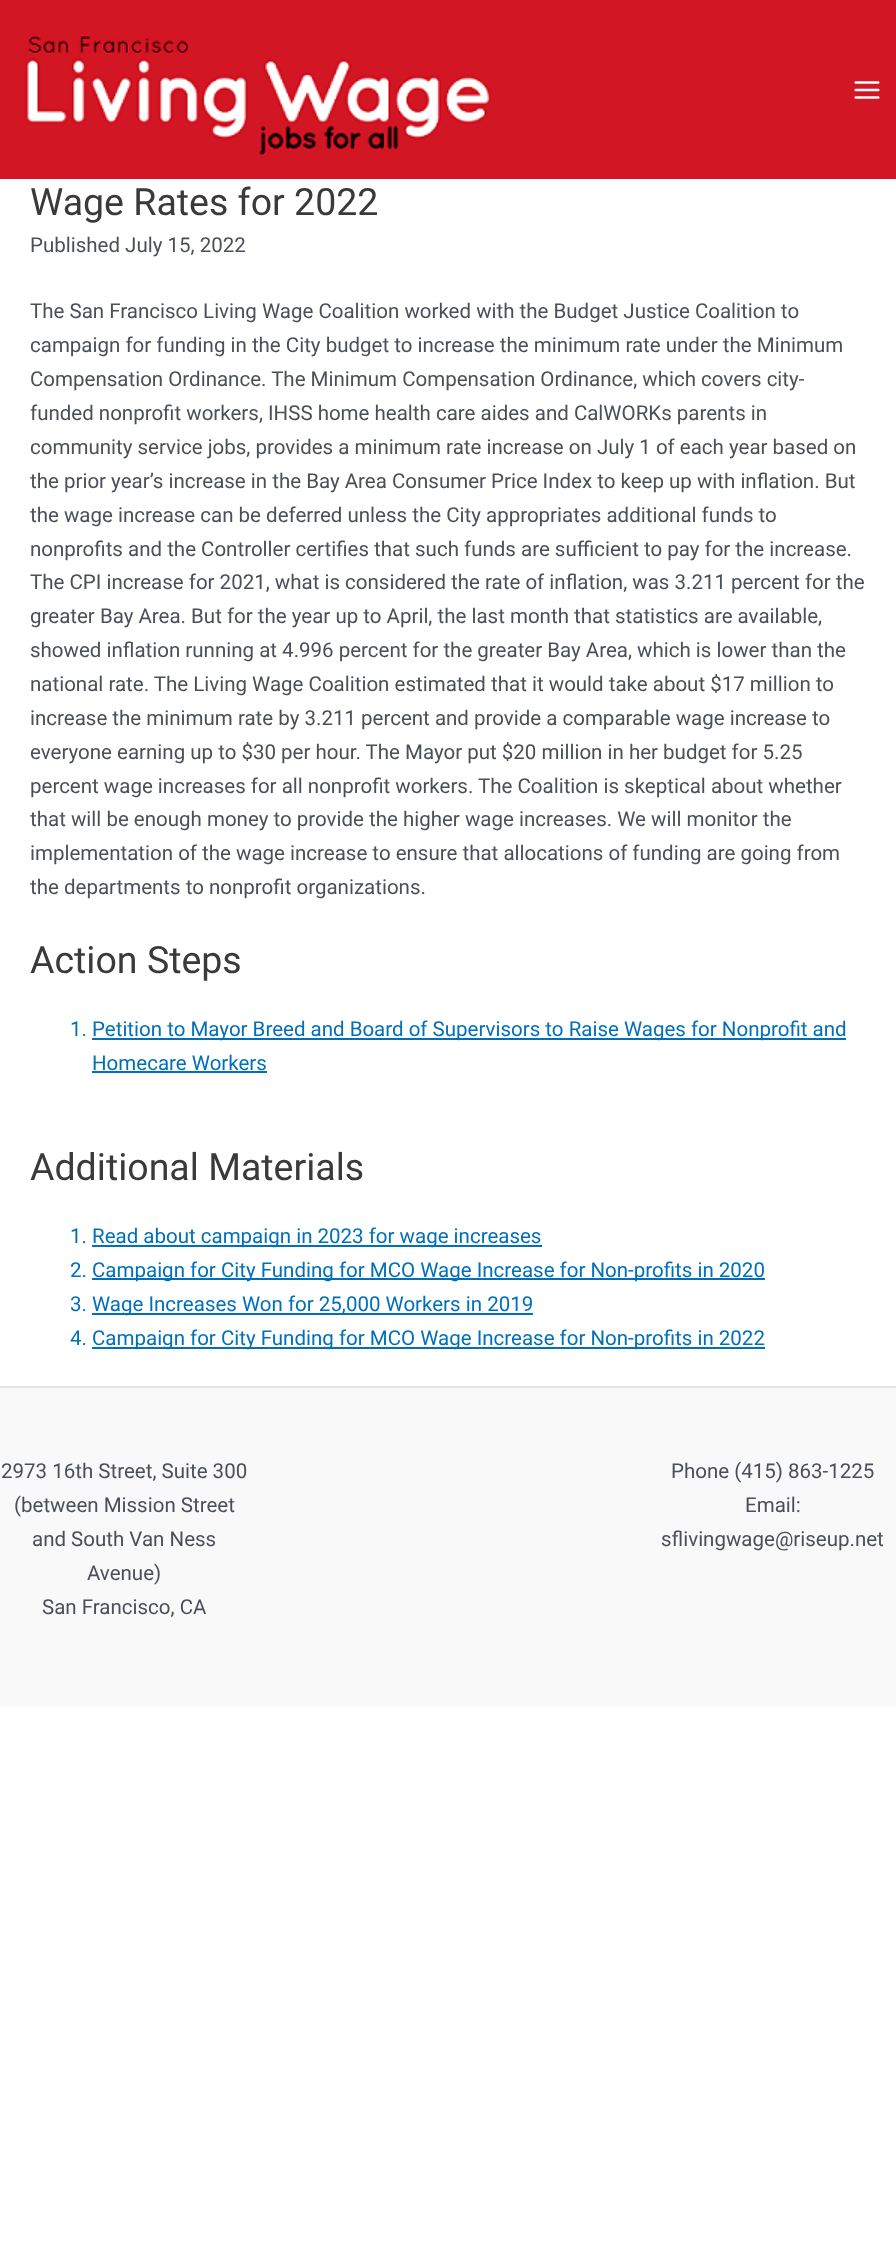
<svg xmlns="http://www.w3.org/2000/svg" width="896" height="2246">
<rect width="100%" height="100%" fill="#fff"/>
<rect width="896" height="179" fill="#d31624"/>
<image x="25" y="34" width="466" height="122" href="media/1.png"/>
<image x="854" y="81" width="26" height="18" href="media/2.png"/>
<text x="30" y="215" style="font-family:Roboto;font-size:37.5px;fill:#3a3a3a">Wage Rates for 2022</text>
<text x="30" y="252" style="font-family:Roboto;font-size:20.5px;fill:#4b4f58">Published July 15, 2022</text>
<text x="30" y="318" style="font-family:Roboto;font-size:20.5px;fill:#4b4f58">The San Francisco Living Wage Coalition worked with the Budget Justice Coalition to</text>
<text x="30" y="352" style="font-family:Roboto;font-size:20.5px;fill:#4b4f58">campaign for funding in the City budget to increase the minimum rate under the Minimum</text>
<text x="30" y="386" style="font-family:Roboto;font-size:20.5px;fill:#4b4f58">Compensation Ordinance. The Minimum Compensation Ordinance, which covers city-</text>
<text x="30" y="420" style="font-family:Roboto;font-size:20.5px;fill:#4b4f58">funded nonprofit workers, IHSS home health care aides and CalWORKs parents in</text>
<text x="30" y="454" style="font-family:Roboto;font-size:20.5px;fill:#4b4f58">community service jobs, provides a minimum rate increase on July 1 of each year based on</text>
<text x="30" y="488" style="font-family:Roboto;font-size:20.5px;fill:#4b4f58">the prior year’s increase in the Bay Area Consumer Price Index to keep up with inflation. But</text>
<text x="30" y="522" style="font-family:Roboto;font-size:20.5px;fill:#4b4f58">the wage increase can be deferred unless the City appropriates additional funds to</text>
<text x="30" y="556" style="font-family:Roboto;font-size:20.5px;fill:#4b4f58">nonprofits and the Controller certifies that such funds are sufficient to pay for the increase.</text>
<text x="30" y="589" style="font-family:Roboto;font-size:20.5px;fill:#4b4f58">The CPI increase for 2021, what is considered the rate of inflation, was 3.211 percent for the</text>
<text x="30" y="623" style="font-family:Roboto;font-size:20.5px;fill:#4b4f58">greater Bay Area. But for the year up to April, the last month that statistics are available,</text>
<text x="30" y="657" style="font-family:Roboto;font-size:20.5px;fill:#4b4f58">showed inflation running at 4.996 percent for the greater Bay Area, which is lower than the</text>
<text x="30" y="691" style="font-family:Roboto;font-size:20.5px;fill:#4b4f58">national rate. The Living Wage Coalition estimated that it would take about $17 million to</text>
<text x="30" y="725" style="font-family:Roboto;font-size:20.5px;fill:#4b4f58">increase the minimum rate by 3.211 percent and provide a comparable wage increase to</text>
<text x="30" y="759" style="font-family:Roboto;font-size:20.5px;fill:#4b4f58">everyone earning up to $30 per hour. The Mayor put $20 million in her budget for 5.25</text>
<text x="30" y="793" style="font-family:Roboto;font-size:20.5px;fill:#4b4f58">percent wage increases for all nonprofit workers. The Coalition is skeptical about whether</text>
<text x="30" y="826" style="font-family:Roboto;font-size:20.5px;fill:#4b4f58">that will be enough money to provide the higher wage increases. We will monitor the</text>
<text x="30" y="860" style="font-family:Roboto;font-size:20.5px;fill:#4b4f58">implementation of the wage increase to ensure that allocations of funding are going from</text>
<text x="30" y="894" style="font-family:Roboto;font-size:20.5px;fill:#4b4f58">the departments to nonprofit organizations.</text>
<text x="30" y="973" style="font-family:Roboto;font-size:37.5px;fill:#3a3a3a">Action Steps</text>
<text x="70" y="1036" style="font-family:Roboto;font-size:20.5px;fill:#0170b9">1.</text>
<rect x="92" y="1038" width="754" height="2" fill="#0170b9"/>
<text x="92" y="1036" style="font-family:Roboto;font-size:20.5px;fill:#0170b9">Petition to Mayor Breed and Board of Supervisors to Raise Wages for Nonprofit and</text>
<text x="92" y="1070" style="font-family:Roboto;font-size:20.5px;fill:#0170b9">Homecare Workers</text>
<rect x="92" y="1071" width="175" height="2" fill="#0170b9"/>
<text x="30" y="1180" style="font-family:Roboto;font-size:37.5px;fill:#3a3a3a">Additional Materials</text>
<text x="70" y="1243" style="font-family:Roboto;font-size:20.5px;fill:#0170b9">1.</text>
<rect x="92" y="1245" width="450" height="2" fill="#0170b9"/>
<text x="92" y="1243" style="font-family:Roboto;font-size:20.5px;fill:#0170b9">Read about campaign in 2023 for wage increases</text>
<text x="70" y="1277" style="font-family:Roboto;font-size:20.5px;fill:#0170b9">2.</text>
<rect x="92" y="1278" width="673" height="2" fill="#0170b9"/>
<text x="92" y="1277" style="font-family:Roboto;font-size:20.5px;fill:#0170b9">Campaign for City Funding for MCO Wage Increase for Non-profits in 2020</text>
<text x="70" y="1311" style="font-family:Roboto;font-size:20.5px;fill:#0170b9">3.</text>
<rect x="92" y="1313" width="441" height="2" fill="#0170b9"/>
<text x="92" y="1311" style="font-family:Roboto;font-size:20.5px;fill:#0170b9">Wage Increases Won for 25,000 Workers in 2019</text>
<text x="70" y="1345" style="font-family:Roboto;font-size:20.5px;fill:#0170b9">4.</text>
<rect x="92" y="1347" width="673" height="2" fill="#0170b9"/>
<text x="92" y="1345" style="font-family:Roboto;font-size:20.5px;fill:#0170b9">Campaign for City Funding for MCO Wage Increase for Non-profits in 2022</text>
<rect y="1388" width="896" height="319" fill="#f9f9f9"/>
<rect y="1386" width="896" height="2" fill="#e5e5e5"/>
<text x="1" y="1478" style="font-family:Roboto;font-size:20.5px;fill:#4b4f58">2973 16th Street, Suite 300</text>
<text x="14" y="1512" style="font-family:Roboto;font-size:20.5px;fill:#4b4f58">(between Mission Street</text>
<text x="32" y="1546" style="font-family:Roboto;font-size:20.5px;fill:#4b4f58">and South Van Ness</text>
<text x="87" y="1580" style="font-family:Roboto;font-size:20.5px;fill:#4b4f58">Avenue)</text>
<text x="42" y="1614" style="font-family:Roboto;font-size:20.5px;fill:#4b4f58">San Francisco, CA</text>
<text x="671" y="1478" style="font-family:Roboto;font-size:20.5px;fill:#4b4f58">Phone (415) 863-1225</text>
<text x="745" y="1512" style="font-family:Roboto;font-size:20.5px;fill:#4b4f58">Email:</text>
<text x="661" y="1546" style="font-family:Roboto;font-size:20.5px;fill:#4b4f58">sflivingwage@riseup.net</text>
</svg>
